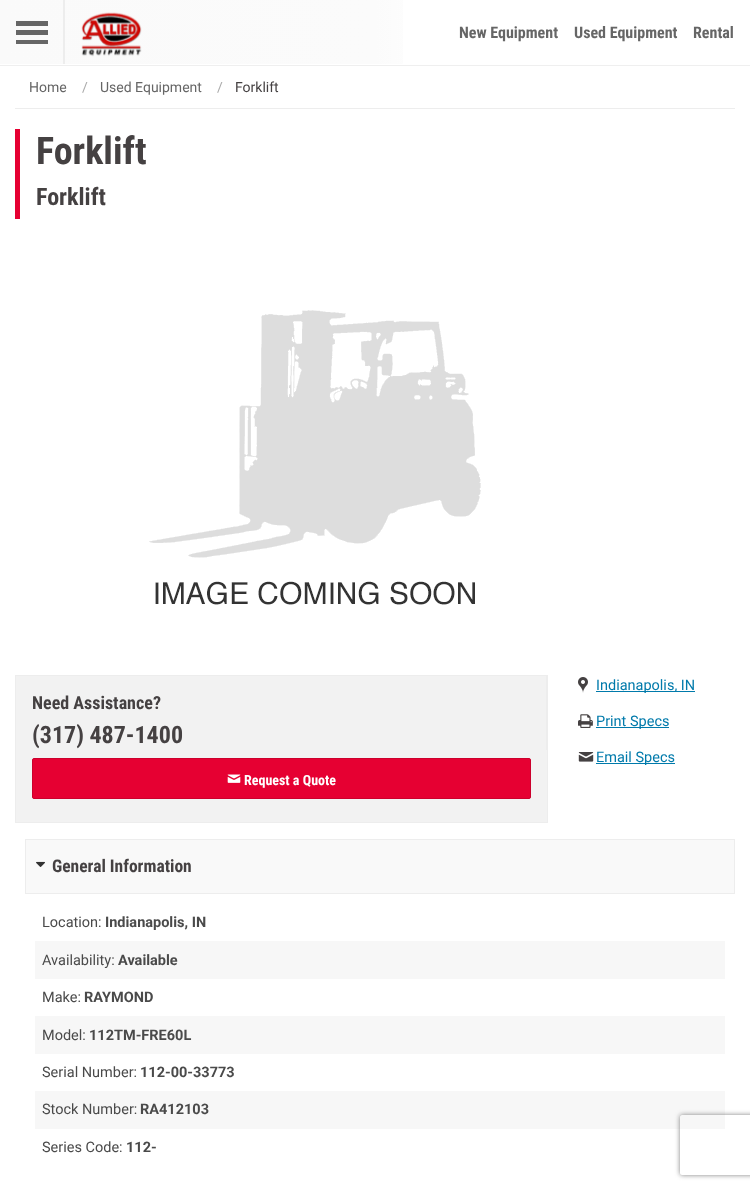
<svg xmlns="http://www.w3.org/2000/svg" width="750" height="1189">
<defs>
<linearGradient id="g1" gradientUnits="userSpaceOnUse" x1="0" y1="32" x2="750" y2="32"><stop offset="0" stop-color="#fafafa"/><stop offset="0.5" stop-color="#fbfbfb"/><stop offset="0.6" stop-color="#fff"/></linearGradient>
<clipPath id="clip1"><path d="M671 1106h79v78h-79zm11 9h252c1 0 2 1 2 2v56c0 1-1 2-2 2h-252c-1 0-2-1-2-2v-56c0-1 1-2 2-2z" clip-rule="evenodd"/></clipPath>
</defs>
<rect width="100%" height="100%" fill="#fff"/>
<rect y="65" width="750" height="1" fill="#efefef"/>
<rect width="403" height="64" fill="url(#g1)"/>
<rect x="63" width="2" height="64" fill="#ededed"/>
<rect x="16" y="30" width="32" height="5" fill="#666"/>
<rect x="16" y="21" width="32" height="5" fill="#666"/>
<rect x="16" y="40" width="32" height="4" fill="#666"/>
<image x="81" y="12" width="61" height="45" href="media/1.png"/>
<text x="459" y="38" style="font-family:Roboto Condensed;font-size:16px;font-weight:bold;fill:#666">New Equipment</text>
<text x="574" y="38" style="font-family:Roboto Condensed;font-size:16px;font-weight:bold;fill:#666">Used Equipment</text>
<text x="693" y="38" style="font-family:Roboto Condensed;font-size:16px;font-weight:bold;fill:#666">Rental</text>
<rect x="15" y="108" width="720" height="1" fill="#ededed"/>
<text x="29" y="92" style="font-family:Roboto;font-size:14px;fill:#666">Home</text>
<text x="82" y="92" style="font-family:Roboto;font-size:14px;fill:#aaa">/</text>
<text x="100" y="92" style="font-family:Roboto;font-size:14px;fill:#666">Used Equipment</text>
<text x="217" y="92" style="font-family:Roboto;font-size:14px;fill:#aaa">/</text>
<text x="235" y="92" style="font-family:Roboto;font-size:14px;fill:#454142">Forklift</text>
<rect x="15" y="129" width="5" height="90" fill="#e60032"/>
<text x="36" y="164" style="font-family:Roboto Condensed;font-size:38px;font-weight:bold;fill:#454142">Forklift</text>
<text x="36" y="205" style="font-family:Roboto Condensed;font-size:24px;font-weight:bold;fill:#454142">Forklift</text>
<image x="149" y="310" width="332" height="295" href="media/2.png"/>
<rect x="15.5" y="675.5" width="532" height="147" fill="#f2f2f2" stroke="#ededed"/>
<rect x="546" y="676" width="1" height="74" fill="#ededed"/>
<text x="32" y="709" style="font-family:Roboto Condensed;font-size:18px;font-weight:bold;fill:#454142">Need Assistance?</text>
<text x="32" y="743" style="font-family:Roboto Condensed;font-size:24px;font-weight:bold;fill:#454142">(317) 487-1400</text>
<rect x="32.5" y="758.5" width="498" height="40" rx="1.5" fill="#e60032" stroke="#cc002c"/>
<image x="227" y="774" width="14" height="9" href="media/3.png"/>
<text x="244" y="785" style="font-family:Roboto Condensed;font-size:14px;font-weight:bold;fill:#fff">Request a Quote</text>
<image x="578" y="677" width="10" height="16" href="media/4.png"/>
<rect x="596" y="691" width="99" height="1" fill="#007aab"/>
<text x="596" y="690" style="font-family:Roboto;font-size:14.5px;fill:#007aab">Indianapolis, IN</text>
<image x="578" y="714" width="15" height="14" href="media/5.png"/>
<rect x="596" y="727" width="73" height="1" fill="#007aab"/>
<text x="596" y="726" style="font-family:Roboto;font-size:14.5px;fill:#007aab">Print Specs</text>
<image x="578" y="752" width="16" height="10" href="media/6.png"/>
<rect x="596" y="763" width="79" height="1" fill="#007aab"/>
<text x="596" y="762" style="font-family:Roboto;font-size:14.5px;fill:#007aab">Email Specs</text>
<rect x="25.5" y="839.5" width="709" height="54" fill="#f9f9f9" stroke="#ededed"/>
<image x="36" y="861" width="9" height="6" href="media/7.png"/>
<text x="52" y="872" style="font-family:Roboto Condensed;font-size:17.5px;font-weight:bold;fill:#454142">General Information</text>
<text x="42" y="927" style="font-family:Roboto;font-size:14.5px;fill:#4a4a4a">Location:</text>
<text x="105" y="927" style="font-family:Roboto;font-size:14.5px;font-weight:bold;fill:#4a4a4a">Indianapolis, IN</text>
<rect x="35" y="941" width="690" height="38" fill="#f7f7f7"/>
<text x="42" y="965" style="font-family:Roboto;font-size:14.5px;fill:#4a4a4a">Availability:</text>
<text x="118" y="965" style="font-family:Roboto;font-size:14.5px;font-weight:bold;fill:#4a4a4a">Available</text>
<text x="42" y="1002" style="font-family:Roboto;font-size:14.5px;fill:#4a4a4a">Make:</text>
<text x="84" y="1002" style="font-family:Roboto;font-size:14.5px;font-weight:bold;fill:#4a4a4a">RAYMOND</text>
<rect x="35" y="1016" width="690" height="38" fill="#f7f7f7"/>
<text x="42" y="1040" style="font-family:Roboto;font-size:14.5px;fill:#4a4a4a">Model:</text>
<text x="89" y="1040" style="font-family:Roboto;font-size:14.5px;font-weight:bold;fill:#4a4a4a">112TM-FRE60L</text>
<text x="42" y="1077" style="font-family:Roboto;font-size:14.5px;fill:#4a4a4a">Serial Number:</text>
<text x="140" y="1077" style="font-family:Roboto;font-size:14.5px;font-weight:bold;fill:#4a4a4a">112-00-33773</text>
<rect x="35" y="1091" width="690" height="38" fill="#f7f7f7"/>
<text x="42" y="1114" style="font-family:Roboto;font-size:14.5px;fill:#4a4a4a">Stock Number:</text>
<text x="140" y="1114" style="font-family:Roboto;font-size:14.5px;font-weight:bold;fill:#4a4a4a">RA412103</text>
<text x="42" y="1152" style="font-family:Roboto;font-size:14.5px;fill:#4a4a4a">Series Code:</text>
<text x="126" y="1152" style="font-family:Roboto;font-size:14.5px;font-weight:bold;fill:#4a4a4a">112-</text>
<g clip-path="url(#clip1)">
<rect x="680" y="1115" width="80" height="60" rx="2" fill="#808080" filter="blur(2.5px)"/>
</g>
</svg>
